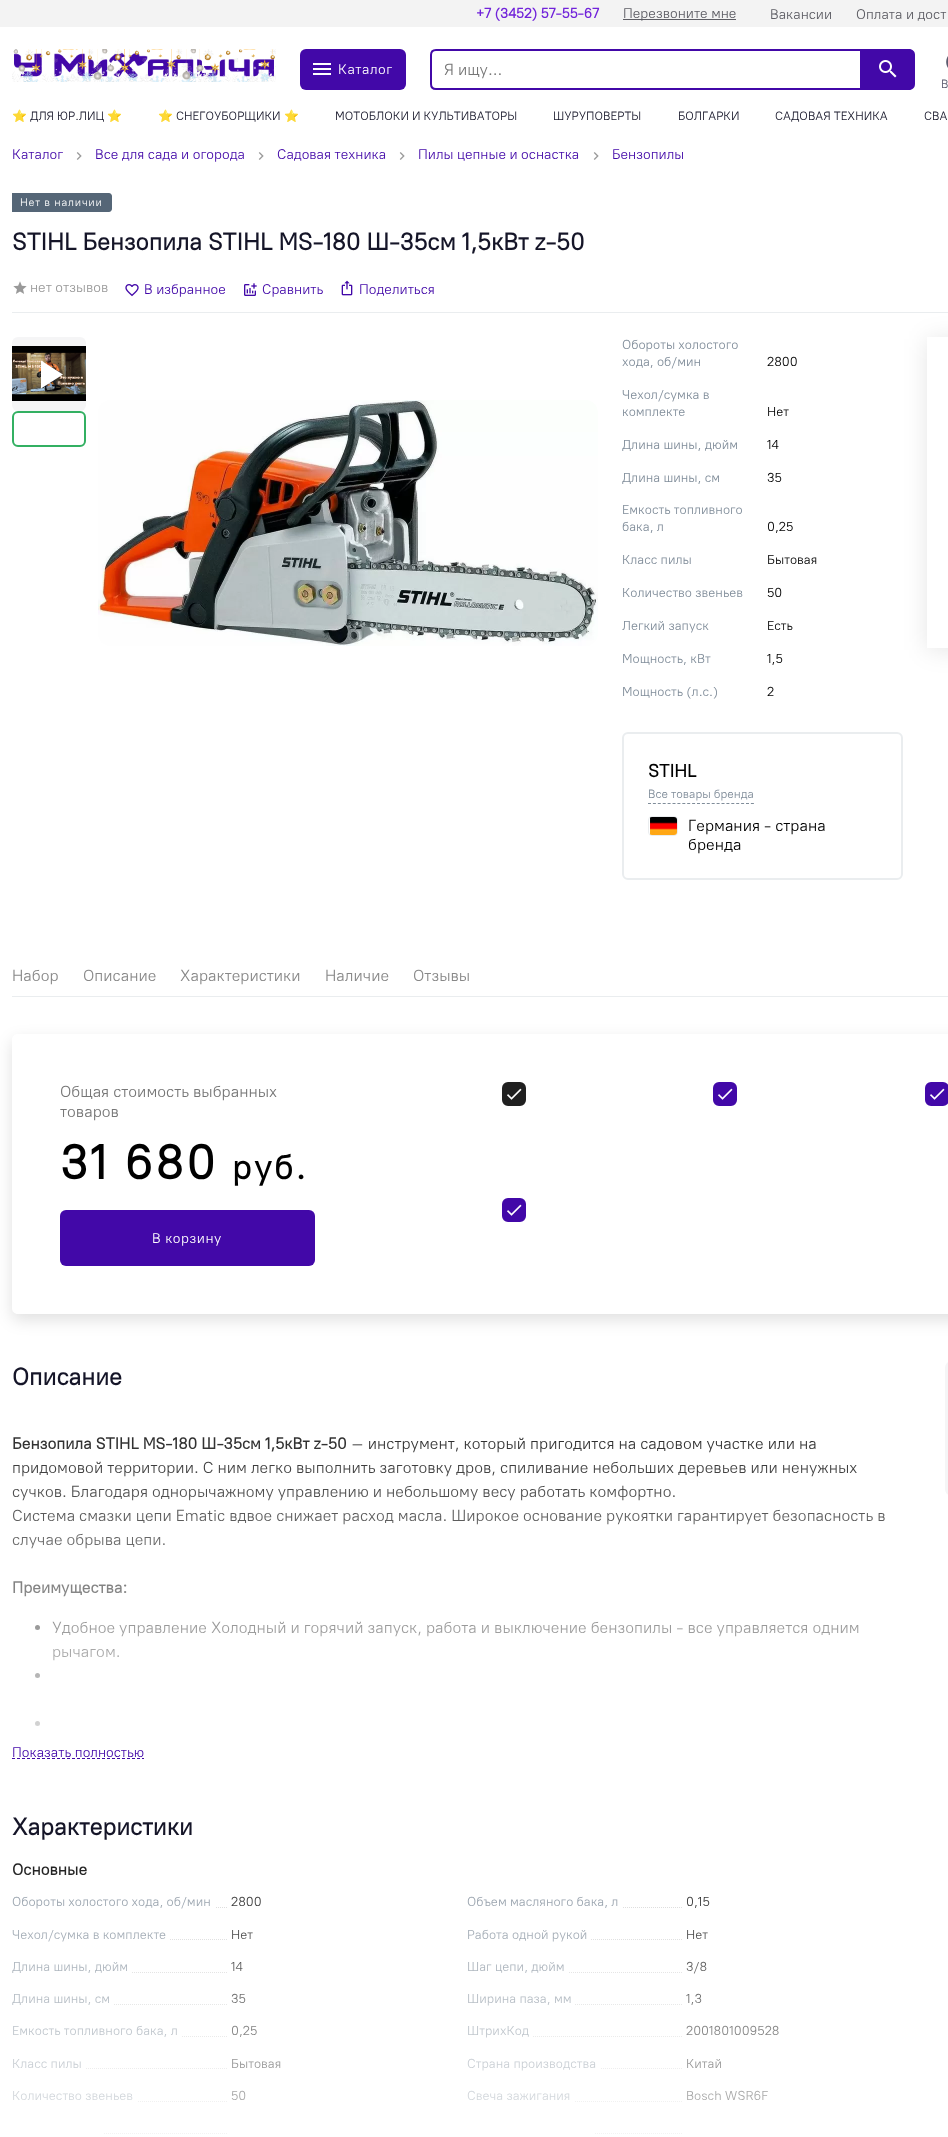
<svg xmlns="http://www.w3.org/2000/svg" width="948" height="2137">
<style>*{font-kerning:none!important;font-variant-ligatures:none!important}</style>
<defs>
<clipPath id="clip1"><path d="M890 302h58v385h-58zm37 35h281v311h-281z" clip-rule="evenodd"/></clipPath>
<clipPath id="clip2"><path d="M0 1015h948v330h-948zm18 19h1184c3.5 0 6 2.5 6 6v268c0 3.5-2.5 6-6 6h-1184c-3.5 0-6-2.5-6-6v-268c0-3.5 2.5-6 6-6z" clip-rule="evenodd"/></clipPath>
<linearGradient id="g1" gradientUnits="userSpaceOnUse" x1="455" y1="1357" x2="455" y2="1803"><stop offset="0" stop-color="#fff" stop-opacity="0"/><stop offset="1" stop-color="#fff"/></linearGradient>
<linearGradient id="g2" gradientUnits="userSpaceOnUse" x1="455" y1="1807" x2="455" y2="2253"><stop offset="0" stop-color="#fff" stop-opacity="0"/><stop offset="1" stop-color="#fff"/></linearGradient>
</defs>
<rect width="100%" height="100%" fill="#fff"/>
<rect width="948" height="27" fill="#f3f3f3"/>
<text x="476" y="18" style="font-family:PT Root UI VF;font-size:14px;font-weight:bold;fill:#7123da">+7 (3452) 57-55-67</text>
<rect x="623" y="19" width="113" height="1" fill="#5d5d64"/>
<text x="623" y="18" style="font-family:PT Root UI VF;font-size:14px;fill:#5d5d64">Перезвоните мне</text>
<text x="770" y="19" style="font-family:PT Root UI VF;font-size:14px;fill:#5d5d64">Вакансии</text>
<text x="856" y="19" style="font-family:PT Root UI VF;font-size:14px;fill:#5d5d64">Оплата и дост</text>
<image x="12" y="49" width="264" height="33" href="media/1.png"/>
<rect x="300" y="49" width="106" height="41" rx="6" fill="#4208a8"/>
<image x="313" y="63" width="18" height="12" href="media/2.png"/>
<text x="338" y="74" style="font-family:PT Root UI VF;font-size:14px;letter-spacing:0.5px;fill:#fff">Каталог</text>
<path d="M436 50h425v39h-425c-3 0-5-2-5-5v-29c0-3 2-5 5-5z" fill="none" stroke="#4208a8" stroke-width="2"/>
<text x="444" y="75" style="font-family:PT Root UI VF;font-size:16px;fill:#777">Я ищу...</text>
<path d="M862 49h47c3.5 0 6 2.5 6 6v29c0 3.5-2.5 6-6 6h-47z" fill="#4208a8"/>
<image x="879" y="60" width="18" height="18" href="media/3.png"/>
<image x="946" y="56" width="2" height="12" href="media/4.png"/>
<text x="941" y="88" style="font-family:PT Root UI VF;font-size:12px;fill:#5a5a6d">В</text>
<text x="12" y="120" style="font-family:Noto Color Emoji;font-size:12px;fill:#151528">⭐</text>
<text x="30" y="120" style="font-family:PT Root UI VF;font-size:12px;fill:#151528">ДЛЯ ЮР.ЛИЦ</text>
<text x="107" y="120" style="font-family:Noto Color Emoji;font-size:12px;fill:#151528">⭐</text>
<text x="158" y="120" style="font-family:Noto Color Emoji;font-size:12px;fill:#151528">⭐</text>
<text x="176" y="120" style="font-family:PT Root UI VF;font-size:12px;fill:#151528">СНЕГОУБОРЩИКИ</text>
<text x="284" y="120" style="font-family:Noto Color Emoji;font-size:12px;fill:#151528">⭐</text>
<text x="335" y="120" style="font-family:PT Root UI VF;font-size:12px;fill:#151528">МОТОБЛОКИ И КУЛЬТИВАТОРЫ</text>
<text x="553" y="120" style="font-family:PT Root UI VF;font-size:12px;fill:#151528">ШУРУПОВЕРТЫ</text>
<text x="678" y="120" style="font-family:PT Root UI VF;font-size:12px;fill:#151528">БОЛГАРКИ</text>
<text x="775" y="120" style="font-family:PT Root UI VF;font-size:12px;fill:#151528">САДОВАЯ ТЕХНИКА</text>
<text x="924" y="120" style="font-family:PT Root UI VF;font-size:12px;fill:#151528">СВА</text>
<text x="12" y="159" style="font-family:PT Root UI VF;font-size:14px;fill:#4208a8">Каталог</text>
<image x="76" y="152" width="6" height="8" href="media/5.png"/>
<text x="95" y="159" style="font-family:PT Root UI VF;font-size:14px;fill:#4208a8">Все для сада и огорода</text>
<image x="258" y="152" width="6" height="8" href="media/5.png"/>
<text x="277" y="159" style="font-family:PT Root UI VF;font-size:14px;fill:#4208a8">Садовая техника</text>
<image x="399" y="152" width="6" height="8" href="media/5.png"/>
<text x="418" y="159" style="font-family:PT Root UI VF;font-size:14px;fill:#4208a8">Пилы цепные и оснастка</text>
<image x="593" y="152" width="6" height="8" href="media/5.png"/>
<text x="612" y="159" style="font-family:PT Root UI VF;font-size:14px;fill:#4208a8">Бензопилы</text>
<path d="M12 193h97c1.5 0 3 1.5 3 3v13c0 1.5-1.5 3-3 3h-97z" fill="#567"/>
<text x="20" y="206" style="font-family:PT Root UI VF;font-size:11px;letter-spacing:0.75px;fill:#fff">Нет в наличии</text>
<text x="12" y="250" style="font-family:PT Root UI VF;font-size:24px;font-weight:bold;fill:#151528">STIHL Бензопила STIHL MS-180 Ш-35см 1,5кВт z-50</text>
<rect x="12" y="312" width="936" height="1" fill="#eaedef"/>
<image x="13" y="281" width="14" height="13" href="media/6.png"/>
<text x="30" y="292" style="font-family:PT Root UI VF;font-size:14px;fill:#999">нет отзывов</text>
<image x="125" y="284" width="14" height="13" href="media/7.png"/>
<text x="144" y="294" style="font-family:PT Root UI VF;font-size:14px;fill:#4208a8">В избранное</text>
<image x="244" y="283" width="13" height="13" href="media/8.png"/>
<text x="262" y="294" style="font-family:PT Root UI VF;font-size:14px;fill:#4208a8">Сравнить</text>
<image x="341" y="280" width="12" height="16" href="media/9.png"/>
<text x="359" y="294" style="font-family:PT Root UI VF;font-size:14px;fill:#4208a8">Поделиться</text>
<rect x="12" y="337" width="74" height="74" rx="6" fill="#f5f5f6"/>
<image x="12" y="346" width="74" height="55" href="media/10.png"/>
<path d="M41 360.5v28l22-14z" fill="#fff"/>
<rect x="13" y="412" width="72" height="34" rx="5" fill="none" stroke="#33b062" stroke-width="2"/>
<image x="98" y="400" width="500" height="246" href="media/11.png"/>
<text x="622" y="349" style="font-family:PT Root UI VF;font-size:13px;fill:#808d9a">Обороты холостого</text>
<text x="622" y="366" style="font-family:PT Root UI VF;font-size:13px;fill:#808d9a">хода, об/мин</text>
<text x="767" y="366" style="font-family:PT Root UI VF;font-size:13px;fill:#000">2800</text>
<text x="622" y="399" style="font-family:PT Root UI VF;font-size:13px;fill:#808d9a">Чехол/сумка в</text>
<text x="622" y="416" style="font-family:PT Root UI VF;font-size:13px;fill:#808d9a">комплекте</text>
<text x="767" y="416" style="font-family:PT Root UI VF;font-size:13px;fill:#000">Нет</text>
<text x="622" y="449" style="font-family:PT Root UI VF;font-size:13px;fill:#808d9a">Длина шины, дюйм</text>
<text x="767" y="449" style="font-family:PT Root UI VF;font-size:13px;fill:#000">14</text>
<text x="622" y="482" style="font-family:PT Root UI VF;font-size:13px;fill:#808d9a">Длина шины, см</text>
<text x="767" y="482" style="font-family:PT Root UI VF;font-size:13px;fill:#000">35</text>
<text x="622" y="514" style="font-family:PT Root UI VF;font-size:13px;fill:#808d9a">Емкость топливного</text>
<text x="622" y="531" style="font-family:PT Root UI VF;font-size:13px;fill:#808d9a">бака, л</text>
<text x="767" y="531" style="font-family:PT Root UI VF;font-size:13px;fill:#000">0,25</text>
<text x="622" y="564" style="font-family:PT Root UI VF;font-size:13px;fill:#808d9a">Класс пилы</text>
<text x="767" y="564" style="font-family:PT Root UI VF;font-size:13px;fill:#000">Бытовая</text>
<text x="622" y="597" style="font-family:PT Root UI VF;font-size:13px;fill:#808d9a">Количество звеньев</text>
<text x="767" y="597" style="font-family:PT Root UI VF;font-size:13px;fill:#000">50</text>
<text x="622" y="630" style="font-family:PT Root UI VF;font-size:13px;fill:#808d9a">Легкий запуск</text>
<text x="767" y="630" style="font-family:PT Root UI VF;font-size:13px;fill:#000">Есть</text>
<text x="622" y="663" style="font-family:PT Root UI VF;font-size:13px;fill:#808d9a">Мощность, кВт</text>
<text x="767" y="663" style="font-family:PT Root UI VF;font-size:13px;fill:#000">1,5</text>
<text x="622" y="696" style="font-family:PT Root UI VF;font-size:13px;fill:#808d9a">Мощность (л.с.)</text>
<text x="767" y="696" style="font-family:PT Root UI VF;font-size:13px;fill:#000">2</text>
<rect x="623" y="733" width="279" height="146" rx="5" fill="none" stroke="#eaedef" stroke-width="2"/>
<text x="648" y="777" style="font-family:PT Root UI VF;font-size:18px;font-weight:bold;fill:#000">STIHL</text>
<path d="M648 803.5h106" fill="none" stroke="#808d9a" stroke-dasharray="3 1.9"/>
<text x="648" y="798" style="font-family:PT Root UI VF;font-size:12px;fill:#808d9a">Все товары бренда</text>
<rect x="648.5" y="816.5" width="29" height="19" rx="3.5" fill="none" stroke="#eaedef"/>
<image x="650" y="817" width="27" height="18" href="media/12.png"/>
<text x="688" y="831" style="font-family:PT Root UI VF;font-size:16px;fill:#000">Германия - страна</text>
<text x="688" y="850" style="font-family:PT Root UI VF;font-size:16px;fill:#000">бренда</text>
<g clip-path="url(#clip1)">
<rect x="927" y="339" width="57" height="311" fill="#0000001a" filter="blur(12px)"/>
</g>
<rect x="12" y="996" width="936" height="1" fill="#eaedef"/>
<text x="12" y="981" style="font-family:PT Root UI VF;font-size:16px;fill:#888">Набор</text>
<text x="83" y="981" style="font-family:PT Root UI VF;font-size:16px;fill:#888">Описание</text>
<text x="180" y="981" style="font-family:PT Root UI VF;font-size:16px;fill:#888">Характеристики</text>
<text x="325" y="981" style="font-family:PT Root UI VF;font-size:16px;fill:#888">Наличие</text>
<text x="413" y="981" style="font-family:PT Root UI VF;font-size:16px;fill:#888">Отзывы</text>
<g clip-path="url(#clip2)">
<rect x="12" y="1040" width="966" height="280" rx="6" fill="#0000001f" filter="blur(8px)"/>
</g>
<text x="60" y="1097" style="font-family:PT Root UI VF;font-size:16px;fill:#777">Общая стоимость выбранных</text>
<text x="60" y="1117" style="font-family:PT Root UI VF;font-size:16px;fill:#777">товаров</text>
<text x="60" y="1179" style="font-family:PT Root UI VF;font-size:48px;font-weight:bold;letter-spacing:2.5px;fill:#000">31 680</text>
<text x="232" y="1179" style="font-family:PT Root UI VF;font-size:34px;font-weight:bold;letter-spacing:2.5px;fill:#000">руб.</text>
<rect x="60" y="1210" width="255" height="56" rx="6" fill="#4208a8"/>
<text x="152" y="1243" style="font-family:PT Root UI VF;font-size:14px;letter-spacing:0.5px;fill:#fff">В корзину</text>
<rect x="503" y="1083" width="22" height="22" rx="5" fill="#202020" stroke="#202020" stroke-width="2"/>
<image x="507" y="1088" width="15" height="12" href="media/13.png"/>
<rect x="714" y="1083" width="22" height="22" rx="5" fill="#4208a8" stroke="#4208a8" stroke-width="2"/>
<image x="718" y="1088" width="15" height="12" href="media/14.png"/>
<rect x="926" y="1083" width="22" height="22" rx="5" fill="#4208a8" stroke="#4208a8" stroke-width="2"/>
<image x="930" y="1088" width="15" height="12" href="media/14.png"/>
<rect x="503" y="1199" width="22" height="22" rx="5" fill="#4208a8" stroke="#4208a8" stroke-width="2"/>
<image x="507" y="1204" width="15" height="12" href="media/14.png"/>
<text x="12" y="1385" style="font-family:PT Root UI VF;font-size:24px;font-weight:bold;fill:#151528">Описание</text>
<text x="12" y="1449" style="font-family:PT Root UI VF;font-size:16px;font-weight:bold;fill:#000">Бензопила STIHL MS-180 Ш-35см 1,5кВт z-50</text>
<text x="351" y="1449" style="font-family:PT Root UI VF;font-size:16px;fill:#000">– инструмент, который пригодится на садовом участке или на</text>
<text x="12" y="1473" style="font-family:PT Root UI VF;font-size:16px;fill:#000">придомовой территории. С ним легко выполнить заготовку дров, спиливание небольших деревьев или ненужных</text>
<text x="12" y="1497" style="font-family:PT Root UI VF;font-size:16px;fill:#000">сучков. Благодаря однорычажному управлению и небольшому весу работать комфортно.</text>
<text x="12" y="1521" style="font-family:PT Root UI VF;font-size:16px;fill:#000">Система смазки цепи Ematic вдвое снижает расход масла. Широкое основание рукоятки гарантирует безопасность в</text>
<text x="12" y="1545" style="font-family:PT Root UI VF;font-size:16px;fill:#000">случае обрыва цепи.</text>
<text x="12" y="1593" style="font-family:PT Root UI VF;font-size:16px;font-weight:bold;fill:#000">Преимущества:</text>
<circle cx="37.5" cy="1627.5" r="2.5" fill="#000"/>
<text x="52" y="1633" style="font-family:PT Root UI VF;font-size:16px;fill:#000">Удобное управление Холодный и горячий запуск, работа и выключение бензопилы - все управляется одним</text>
<text x="52" y="1657" style="font-family:PT Root UI VF;font-size:16px;fill:#000">рычагом.</text>
<circle cx="37.5" cy="1675.5" r="2.5" fill="#000"/>
<circle cx="37.5" cy="1723.5" r="2.5" fill="#000"/>
<rect x="12" y="1437" width="873" height="289" fill="url(#g1)"/>
<text x="12" y="1757" style="font-family:PT Root UI VF;font-size:14px;fill:#4208a8">Показать полностью</text>
<path d="M12 1758.5h132" fill="none" stroke="#4208a8" stroke-dasharray="3 2"/>
<text x="12" y="1835" style="font-family:PT Root UI VF;font-size:24px;font-weight:bold;fill:#151528">Характеристики</text>
<text x="12" y="1875" style="font-family:PT Root UI VF;font-size:16px;font-weight:bold;fill:#000">Основные</text>
<path d="M12 1907.5h215" fill="none" stroke="#d5d5d5" stroke-dasharray="1 1"/>
<rect x="12" y="1907" width="203" height="1" fill="#fff"/>
<text x="12" y="1906" style="font-family:PT Root UI VF;font-size:13px;fill:#808d9a">Обороты холостого хода, об/мин</text>
<text x="231" y="1906" style="font-family:PT Root UI VF;font-size:13px;fill:#000">2800</text>
<path d="M12 1939.5h215" fill="none" stroke="#d5d5d5" stroke-dasharray="1 1"/>
<rect x="12" y="1939" width="157" height="1" fill="#fff"/>
<text x="12" y="1939" style="font-family:PT Root UI VF;font-size:13px;fill:#808d9a">Чехол/сумка в комплекте</text>
<text x="231" y="1939" style="font-family:PT Root UI VF;font-size:13px;fill:#000">Нет</text>
<path d="M12 1972.5h215" fill="none" stroke="#d5d5d5" stroke-dasharray="1 1"/>
<rect x="12" y="1972" width="119" height="1" fill="#fff"/>
<text x="12" y="1971" style="font-family:PT Root UI VF;font-size:13px;fill:#808d9a">Длина шины, дюйм</text>
<text x="231" y="1971" style="font-family:PT Root UI VF;font-size:13px;fill:#000">14</text>
<path d="M12 2004.5h215" fill="none" stroke="#d5d5d5" stroke-dasharray="1 1"/>
<rect x="12" y="2004" width="101" height="1" fill="#fff"/>
<text x="12" y="2003" style="font-family:PT Root UI VF;font-size:13px;fill:#808d9a">Длина шины, см</text>
<text x="231" y="2003" style="font-family:PT Root UI VF;font-size:13px;fill:#000">35</text>
<path d="M12 2036.5h215" fill="none" stroke="#d5d5d5" stroke-dasharray="1 1"/>
<rect x="12" y="2036" width="169" height="1" fill="#fff"/>
<text x="12" y="2035" style="font-family:PT Root UI VF;font-size:13px;fill:#808d9a">Емкость топливного бака, л</text>
<text x="231" y="2035" style="font-family:PT Root UI VF;font-size:13px;fill:#000">0,25</text>
<path d="M12 2068.5h215" fill="none" stroke="#d5d5d5" stroke-dasharray="1 1"/>
<rect x="12" y="2068" width="73" height="1" fill="#fff"/>
<text x="12" y="2068" style="font-family:PT Root UI VF;font-size:13px;fill:#808d9a">Класс пилы</text>
<text x="231" y="2068" style="font-family:PT Root UI VF;font-size:13px;fill:#000">Бытовая</text>
<path d="M12 2101.5h215" fill="none" stroke="#d5d5d5" stroke-dasharray="1 1"/>
<rect x="12" y="2101" width="125" height="1" fill="#fff"/>
<text x="12" y="2100" style="font-family:PT Root UI VF;font-size:13px;fill:#808d9a">Количество звеньев</text>
<text x="231" y="2100" style="font-family:PT Root UI VF;font-size:13px;fill:#000">50</text>
<path d="M12 2133.5h215" fill="none" stroke="#d5d5d5" stroke-dasharray="1 1"/>
<rect x="12" y="2133" width="91" height="1" fill="#fff"/>
<path d="M467 1907.5h215" fill="none" stroke="#d5d5d5" stroke-dasharray="1 1"/>
<rect x="467" y="1907" width="155" height="1" fill="#fff"/>
<text x="467" y="1906" style="font-family:PT Root UI VF;font-size:13px;fill:#808d9a">Объем масляного бака, л</text>
<text x="686" y="1906" style="font-family:PT Root UI VF;font-size:13px;fill:#000">0,15</text>
<path d="M467 1939.5h215" fill="none" stroke="#d5d5d5" stroke-dasharray="1 1"/>
<rect x="467" y="1939" width="123" height="1" fill="#fff"/>
<text x="467" y="1939" style="font-family:PT Root UI VF;font-size:13px;fill:#808d9a">Работа одной рукой</text>
<text x="686" y="1939" style="font-family:PT Root UI VF;font-size:13px;fill:#000">Нет</text>
<path d="M467 1972.5h215" fill="none" stroke="#d5d5d5" stroke-dasharray="1 1"/>
<rect x="467" y="1972" width="101" height="1" fill="#fff"/>
<text x="467" y="1971" style="font-family:PT Root UI VF;font-size:13px;fill:#808d9a">Шаг цепи, дюйм</text>
<text x="686" y="1971" style="font-family:PT Root UI VF;font-size:13px;fill:#000">3/8</text>
<path d="M467 2004.5h215" fill="none" stroke="#d5d5d5" stroke-dasharray="1 1"/>
<rect x="467" y="2004" width="107" height="1" fill="#fff"/>
<text x="467" y="2003" style="font-family:PT Root UI VF;font-size:13px;fill:#808d9a">Ширина паза, мм</text>
<text x="686" y="2003" style="font-family:PT Root UI VF;font-size:13px;fill:#000">1,3</text>
<path d="M467 2036.5h215" fill="none" stroke="#d5d5d5" stroke-dasharray="1 1"/>
<rect x="467" y="2036" width="65" height="1" fill="#fff"/>
<text x="467" y="2035" style="font-family:PT Root UI VF;font-size:13px;fill:#808d9a">ШтрихКод</text>
<text x="686" y="2035" style="font-family:PT Root UI VF;font-size:13px;fill:#000">2001801009528</text>
<path d="M467 2068.5h215" fill="none" stroke="#d5d5d5" stroke-dasharray="1 1"/>
<rect x="467" y="2068" width="133" height="1" fill="#fff"/>
<text x="467" y="2068" style="font-family:PT Root UI VF;font-size:13px;fill:#808d9a">Страна производства</text>
<text x="686" y="2068" style="font-family:PT Root UI VF;font-size:13px;fill:#000">Китай</text>
<path d="M467 2101.5h215" fill="none" stroke="#d5d5d5" stroke-dasharray="1 1"/>
<rect x="467" y="2101" width="107" height="1" fill="#fff"/>
<text x="467" y="2100" style="font-family:PT Root UI VF;font-size:13px;fill:#808d9a">Свеча зажигания</text>
<text x="686" y="2100" style="font-family:PT Root UI VF;font-size:13px;fill:#000">Bosch WSR6F</text>
<path d="M467 2133.5h215" fill="none" stroke="#d5d5d5" stroke-dasharray="1 1"/>
<rect x="467" y="2133" width="127" height="1" fill="#fff"/>
<rect x="12" y="1863" width="767" height="271" fill="url(#g2)"/>
<rect x="945" y="1362" width="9" height="133" rx="6" fill="#f5f5f6"/>
</svg>
